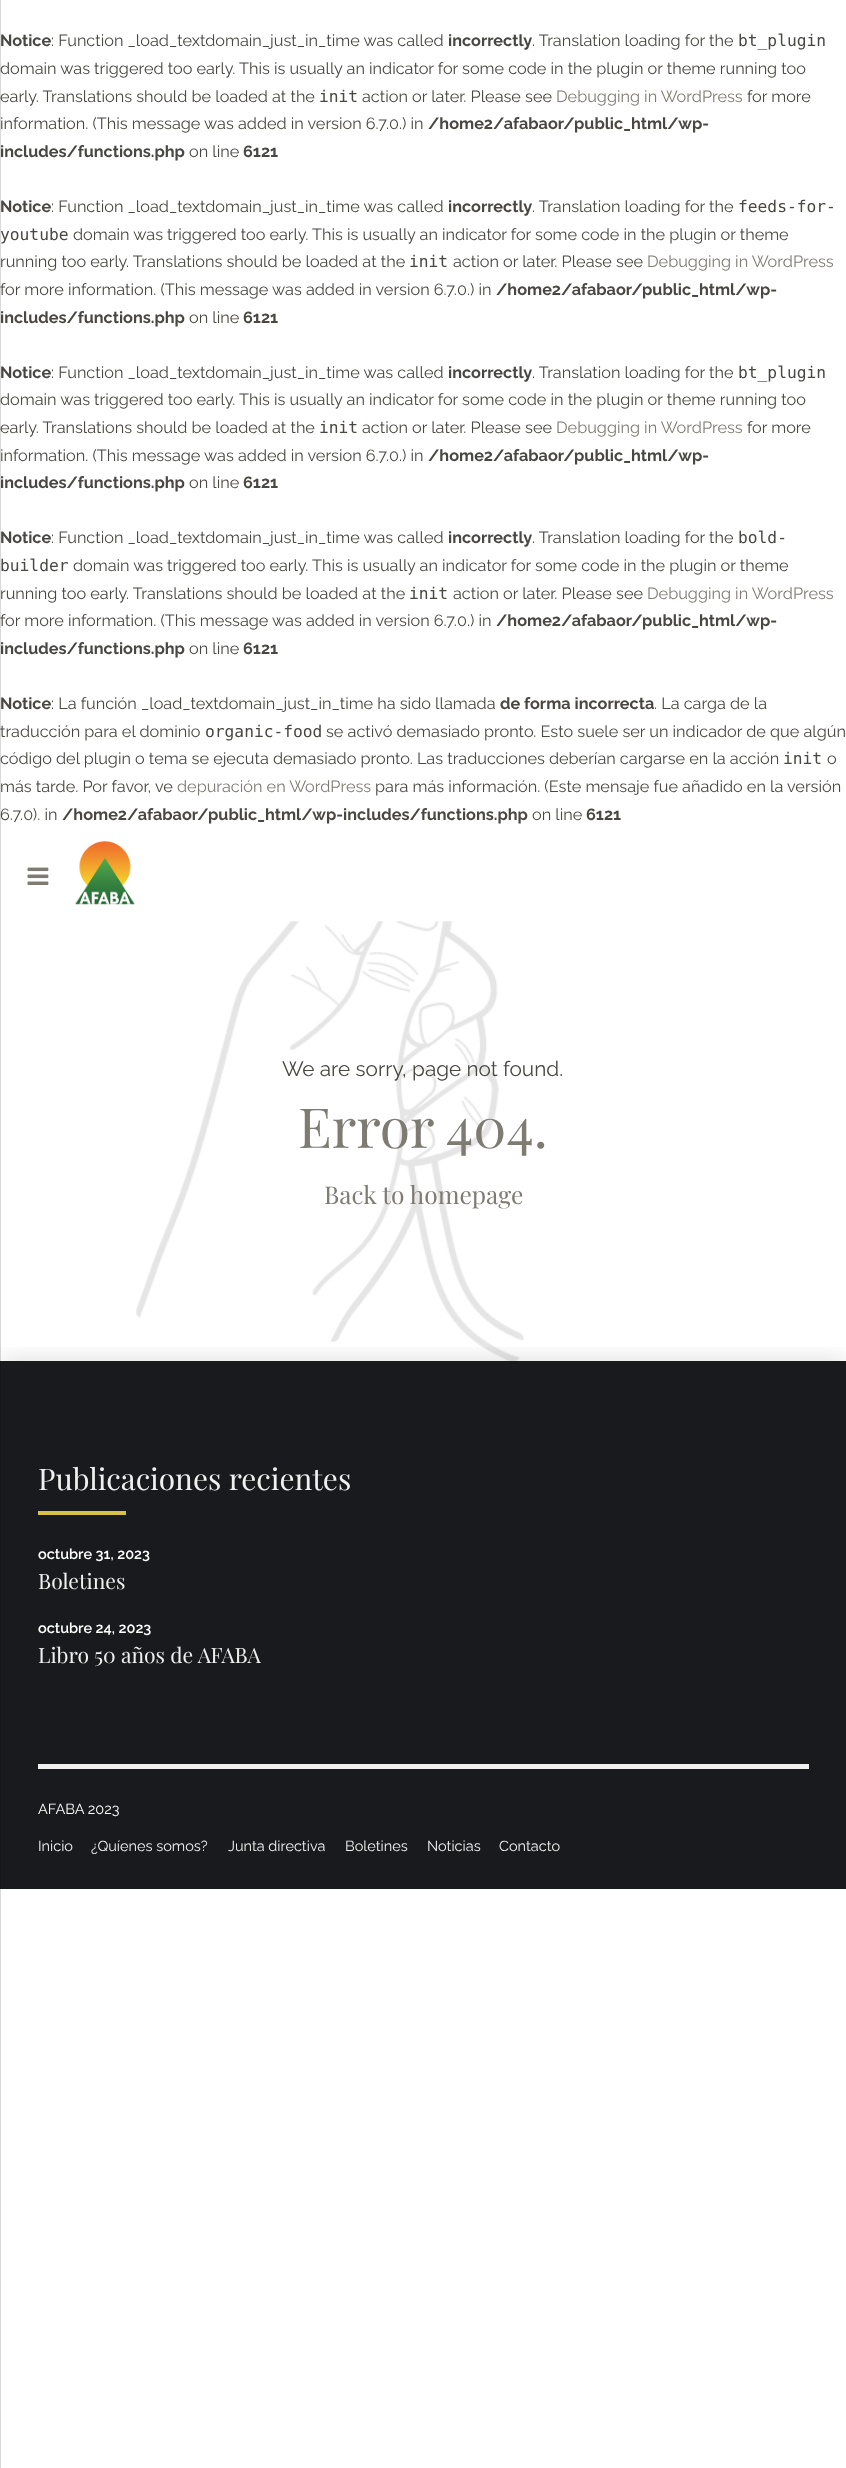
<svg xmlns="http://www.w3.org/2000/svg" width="846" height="2468">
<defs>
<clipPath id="clip1"><rect x="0" y="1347" width="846" height="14"/></clipPath>
</defs>
<rect width="100%" height="100%" fill="#fff"/>
<text x="0" y="74" style="font-family:Raleway;font-size:16.25px;fill:#484743">domain was triggered too early. This is usually an indicator for some code in the plugin or theme running too</text>
<text x="0" y="102" style="font-family:Raleway;font-size:16.25px;fill:#484743">early. Translations should be loaded at the</text>
<text x="0" y="157" style="font-family:Raleway;font-size:16.25px;font-weight:bold;fill:#484743">includes/functions.php</text>
<text x="0" y="240" style="font-family:DejaVu Sans Mono;font-size:16.25px;fill:#484743">youtube</text>
<text x="0" y="295" style="font-family:Raleway;font-size:16.25px;fill:#484743">for more information. (This message was added in version 6.7.0.) in</text>
<text x="0" y="323" style="font-family:Raleway;font-size:16.25px;font-weight:bold;fill:#484743">includes/functions.php</text>
<text x="0" y="405" style="font-family:Raleway;font-size:16.25px;fill:#484743">domain was triggered too early. This is usually an indicator for some code in the plugin or theme running too</text>
<text x="0" y="433" style="font-family:Raleway;font-size:16.25px;fill:#484743">early. Translations should be loaded at the</text>
<text x="0" y="488" style="font-family:Raleway;font-size:16.25px;font-weight:bold;fill:#484743">includes/functions.php</text>
<text x="0" y="626" style="font-family:Raleway;font-size:16.25px;fill:#484743">for more information. (This message was added in version 6.7.0.) in</text>
<text x="0" y="654" style="font-family:Raleway;font-size:16.25px;font-weight:bold;fill:#484743">includes/functions.php</text>
<text x="0" y="737" style="font-family:Raleway;font-size:16.25px;fill:#484743">traducción para el dominio</text>
<text x="0" y="764" style="font-family:Raleway;font-size:16.25px;fill:#484743">código del plugin o tema se ejecuta demasiado pronto. Las traducciones deberían cargarse en la acción</text>
<text x="0" y="820" style="font-family:Raleway;font-size:16.25px;fill:#484743">6.7.0). in</text>
<rect y="1361" width="846" height="403" fill="#181a1e"/>
<image x="136" y="921" width="388" height="440" href="media/3.png"/>
<g clip-path="url(#clip1)">
<rect y="1361" width="846" height="403" fill="#00000026" filter="blur(12.5px)"/>
</g>
<rect y="1764" width="846" height="125" fill="#181a1e"/>
<path d="M-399 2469h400v-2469h-1v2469z" fill="#00000026"/>
<text x="0" y="46" style="font-family:Raleway;font-size:16.25px;font-weight:bold;fill:#484743">Notice</text>
<text x="51" y="46" style="font-family:Raleway;font-size:16.25px;fill:#484743">: Function _load_textdomain_just_in_time was called</text>
<text x="448" y="46" style="font-family:Raleway;font-size:16.25px;font-weight:bold;fill:#484743">incorrectly</text>
<text x="532" y="46" style="font-family:Raleway;font-size:16.25px;fill:#484743">. Translation loading for the</text>
<text x="738" y="46" style="font-family:DejaVu Sans Mono;font-size:16.25px;fill:#484743">bt_plugin</text>
<text x="319" y="102" style="font-family:DejaVu Sans Mono;font-size:16.25px;fill:#484743">init</text>
<text x="362" y="102" style="font-family:Raleway;font-size:16.25px;fill:#484743">action or later. Please see</text>
<text x="556" y="102" style="font-family:Raleway;font-size:16.25px;fill:#7e7b73">Debugging in WordPress</text>
<text x="747" y="102" style="font-family:Raleway;font-size:16.25px;fill:#484743">for more</text>
<text x="0" y="129" style="font-family:Raleway;font-size:16.25px;fill:#484743">information. (This message was added in version 6.7.0.) in</text>
<text x="428" y="129" style="font-family:Raleway;font-size:16.25px;font-weight:bold;fill:#484743">/home2/afabaor/public_html/wp-</text>
<text x="189" y="157" style="font-family:Raleway;font-size:16.25px;fill:#484743">on line</text>
<text x="243" y="157" style="font-family:Raleway;font-size:16.25px;font-weight:bold;fill:#484743">6121</text>
<text x="0" y="212" style="font-family:Raleway;font-size:16.25px;font-weight:bold;fill:#484743">Notice</text>
<text x="51" y="212" style="font-family:Raleway;font-size:16.25px;fill:#484743">: Function _load_textdomain_just_in_time was called</text>
<text x="448" y="212" style="font-family:Raleway;font-size:16.25px;font-weight:bold;fill:#484743">incorrectly</text>
<text x="532" y="212" style="font-family:Raleway;font-size:16.25px;fill:#484743">. Translation loading for the</text>
<text x="738" y="212" style="font-family:DejaVu Sans Mono;font-size:16.25px;fill:#484743">feeds-for-</text>
<text x="73" y="240" style="font-family:Raleway;font-size:16.25px;fill:#484743">domain was triggered too early. This is usually an indicator for some code in the plugin or theme</text>
<text x="0" y="267" style="font-family:Raleway;font-size:16.25px;fill:#484743">running too early. Translations should be loaded at the</text>
<text x="409" y="267" style="font-family:DejaVu Sans Mono;font-size:16.25px;fill:#484743">init</text>
<text x="453" y="267" style="font-family:Raleway;font-size:16.25px;fill:#484743">action or later. Please see</text>
<text x="647" y="267" style="font-family:Raleway;font-size:16.25px;fill:#7e7b73">Debugging in WordPress</text>
<text x="496" y="295" style="font-family:Raleway;font-size:16.25px;font-weight:bold;fill:#484743">/home2/afabaor/public_html/wp-</text>
<text x="189" y="323" style="font-family:Raleway;font-size:16.25px;fill:#484743">on line</text>
<text x="243" y="323" style="font-family:Raleway;font-size:16.25px;font-weight:bold;fill:#484743">6121</text>
<text x="0" y="378" style="font-family:Raleway;font-size:16.25px;font-weight:bold;fill:#484743">Notice</text>
<text x="51" y="378" style="font-family:Raleway;font-size:16.25px;fill:#484743">: Function _load_textdomain_just_in_time was called</text>
<text x="448" y="378" style="font-family:Raleway;font-size:16.25px;font-weight:bold;fill:#484743">incorrectly</text>
<text x="532" y="378" style="font-family:Raleway;font-size:16.25px;fill:#484743">. Translation loading for the</text>
<text x="738" y="378" style="font-family:DejaVu Sans Mono;font-size:16.25px;fill:#484743">bt_plugin</text>
<text x="319" y="433" style="font-family:DejaVu Sans Mono;font-size:16.25px;fill:#484743">init</text>
<text x="362" y="433" style="font-family:Raleway;font-size:16.25px;fill:#484743">action or later. Please see</text>
<text x="556" y="433" style="font-family:Raleway;font-size:16.25px;fill:#7e7b73">Debugging in WordPress</text>
<text x="747" y="433" style="font-family:Raleway;font-size:16.25px;fill:#484743">for more</text>
<text x="0" y="461" style="font-family:Raleway;font-size:16.25px;fill:#484743">information. (This message was added in version 6.7.0.) in</text>
<text x="428" y="461" style="font-family:Raleway;font-size:16.25px;font-weight:bold;fill:#484743">/home2/afabaor/public_html/wp-</text>
<text x="189" y="488" style="font-family:Raleway;font-size:16.25px;fill:#484743">on line</text>
<text x="243" y="488" style="font-family:Raleway;font-size:16.25px;font-weight:bold;fill:#484743">6121</text>
<text x="0" y="543" style="font-family:Raleway;font-size:16.25px;font-weight:bold;fill:#484743">Notice</text>
<text x="51" y="543" style="font-family:Raleway;font-size:16.25px;fill:#484743">: Function _load_textdomain_just_in_time was called</text>
<text x="448" y="543" style="font-family:Raleway;font-size:16.25px;font-weight:bold;fill:#484743">incorrectly</text>
<text x="532" y="543" style="font-family:Raleway;font-size:16.25px;fill:#484743">. Translation loading for the</text>
<text x="738" y="543" style="font-family:DejaVu Sans Mono;font-size:16.25px;fill:#484743">bold-</text>
<text x="0" y="571" style="font-family:DejaVu Sans Mono;font-size:16.25px;fill:#484743">builder</text>
<text x="73" y="571" style="font-family:Raleway;font-size:16.25px;fill:#484743">domain was triggered too early. This is usually an indicator for some code in the plugin or theme</text>
<text x="0" y="599" style="font-family:Raleway;font-size:16.25px;fill:#484743">running too early. Translations should be loaded at the</text>
<text x="409" y="599" style="font-family:DejaVu Sans Mono;font-size:16.25px;fill:#484743">init</text>
<text x="453" y="599" style="font-family:Raleway;font-size:16.25px;fill:#484743">action or later. Please see</text>
<text x="647" y="599" style="font-family:Raleway;font-size:16.25px;fill:#7e7b73">Debugging in WordPress</text>
<text x="496" y="626" style="font-family:Raleway;font-size:16.25px;font-weight:bold;fill:#484743">/home2/afabaor/public_html/wp-</text>
<text x="189" y="654" style="font-family:Raleway;font-size:16.25px;fill:#484743">on line</text>
<text x="243" y="654" style="font-family:Raleway;font-size:16.25px;font-weight:bold;fill:#484743">6121</text>
<text x="0" y="709" style="font-family:Raleway;font-size:16.25px;font-weight:bold;fill:#484743">Notice</text>
<text x="51" y="709" style="font-family:Raleway;font-size:16.25px;fill:#484743">: La función _load_textdomain_just_in_time ha sido llamada</text>
<text x="500" y="709" style="font-family:Raleway;font-size:16.25px;font-weight:bold;fill:#484743">de forma incorrecta</text>
<text x="654" y="709" style="font-family:Raleway;font-size:16.25px;fill:#484743">. La carga de la</text>
<text x="205" y="737" style="font-family:DejaVu Sans Mono;font-size:16.25px;fill:#484743">organic-food</text>
<text x="326" y="737" style="font-family:Raleway;font-size:16.25px;fill:#484743">se activó demasiado pronto. Esto suele ser un indicador de que algún</text>
<text x="783" y="764" style="font-family:DejaVu Sans Mono;font-size:16.25px;fill:#484743">init</text>
<text x="827" y="764" style="font-family:Raleway;font-size:16.25px;fill:#484743">o</text>
<text x="0" y="792" style="font-family:Raleway;font-size:16.25px;fill:#484743">más tarde. Por favor, ve</text>
<text x="177" y="792" style="font-family:Raleway;font-size:16.25px;fill:#7e7b73">depuración en WordPress</text>
<text x="375" y="792" style="font-family:Raleway;font-size:16.25px;fill:#484743">para más información. (Este mensaje fue añadido en la versión</text>
<text x="62" y="820" style="font-family:Raleway;font-size:16.25px;font-weight:bold;fill:#484743">/home2/afabaor/public_html/wp-includes/functions.php</text>
<text x="532" y="820" style="font-family:Raleway;font-size:16.25px;fill:#484743">on line</text>
<text x="586" y="820" style="font-family:Raleway;font-size:16.25px;font-weight:bold;fill:#484743">6121</text>
<image x="27" y="867" width="22" height="18" href="media/1.png"/>
<image x="75" y="841" width="60" height="64" href="media/2.png"/>
<text x="282" y="1076" style="font-family:Raleway;font-size:20.75px;fill:#484743">We are sorry, page not found.</text>
<text x="298" y="1148" style="font-family:Playfair Display;font-size:55.25px;fill:#7e7b73">Error 404.</text>
<text x="324" y="1204" style="font-family:Playfair Display;font-size:24.5px;fill:#7e7b73">Back to homepage</text>
<text x="38" y="1490" style="font-family:Playfair Display;font-size:29.75px;fill:#f0f0f0">Publicaciones recientes</text>
<rect x="38" y="1511" width="88" height="4" fill="#d8c149"/>
<text x="38" y="1559" style="font-family:Raleway;font-size:14.5px;font-weight:600;fill:#fff">octubre 31, 2023</text>
<text x="38" y="1589" style="font-family:Playfair Display;font-size:21.1px;fill:#f0f0f0">Boletines</text>
<text x="38" y="1633" style="font-family:Raleway;font-size:14.5px;font-weight:600;fill:#fff">octubre 24, 2023</text>
<text x="38" y="1663" style="font-family:Playfair Display;font-size:21.1px;fill:#f0f0f0">Libro 50 años de AFABA</text>
<rect x="38" y="1764" width="771" height="5" fill="#f0f0f0"/>
<text x="38" y="1814" style="font-family:Raleway;font-size:14.5px;fill:#fff">AFABA 2023</text>
<text x="38" y="1851" style="font-family:Raleway;font-size:14.5px;fill:#f0f0f0">Inicio</text>
<text x="91" y="1851" style="font-family:Raleway;font-size:14.5px;fill:#f0f0f0">¿Quíenes somos?</text>
<text x="228" y="1851" style="font-family:Raleway;font-size:14.5px;fill:#f0f0f0">Junta directiva</text>
<text x="345" y="1851" style="font-family:Raleway;font-size:14.5px;fill:#f0f0f0">Boletines</text>
<text x="427" y="1851" style="font-family:Raleway;font-size:14.5px;fill:#f0f0f0">Noticias</text>
<text x="499" y="1851" style="font-family:Raleway;font-size:14.5px;fill:#f0f0f0">Contacto</text>
</svg>
